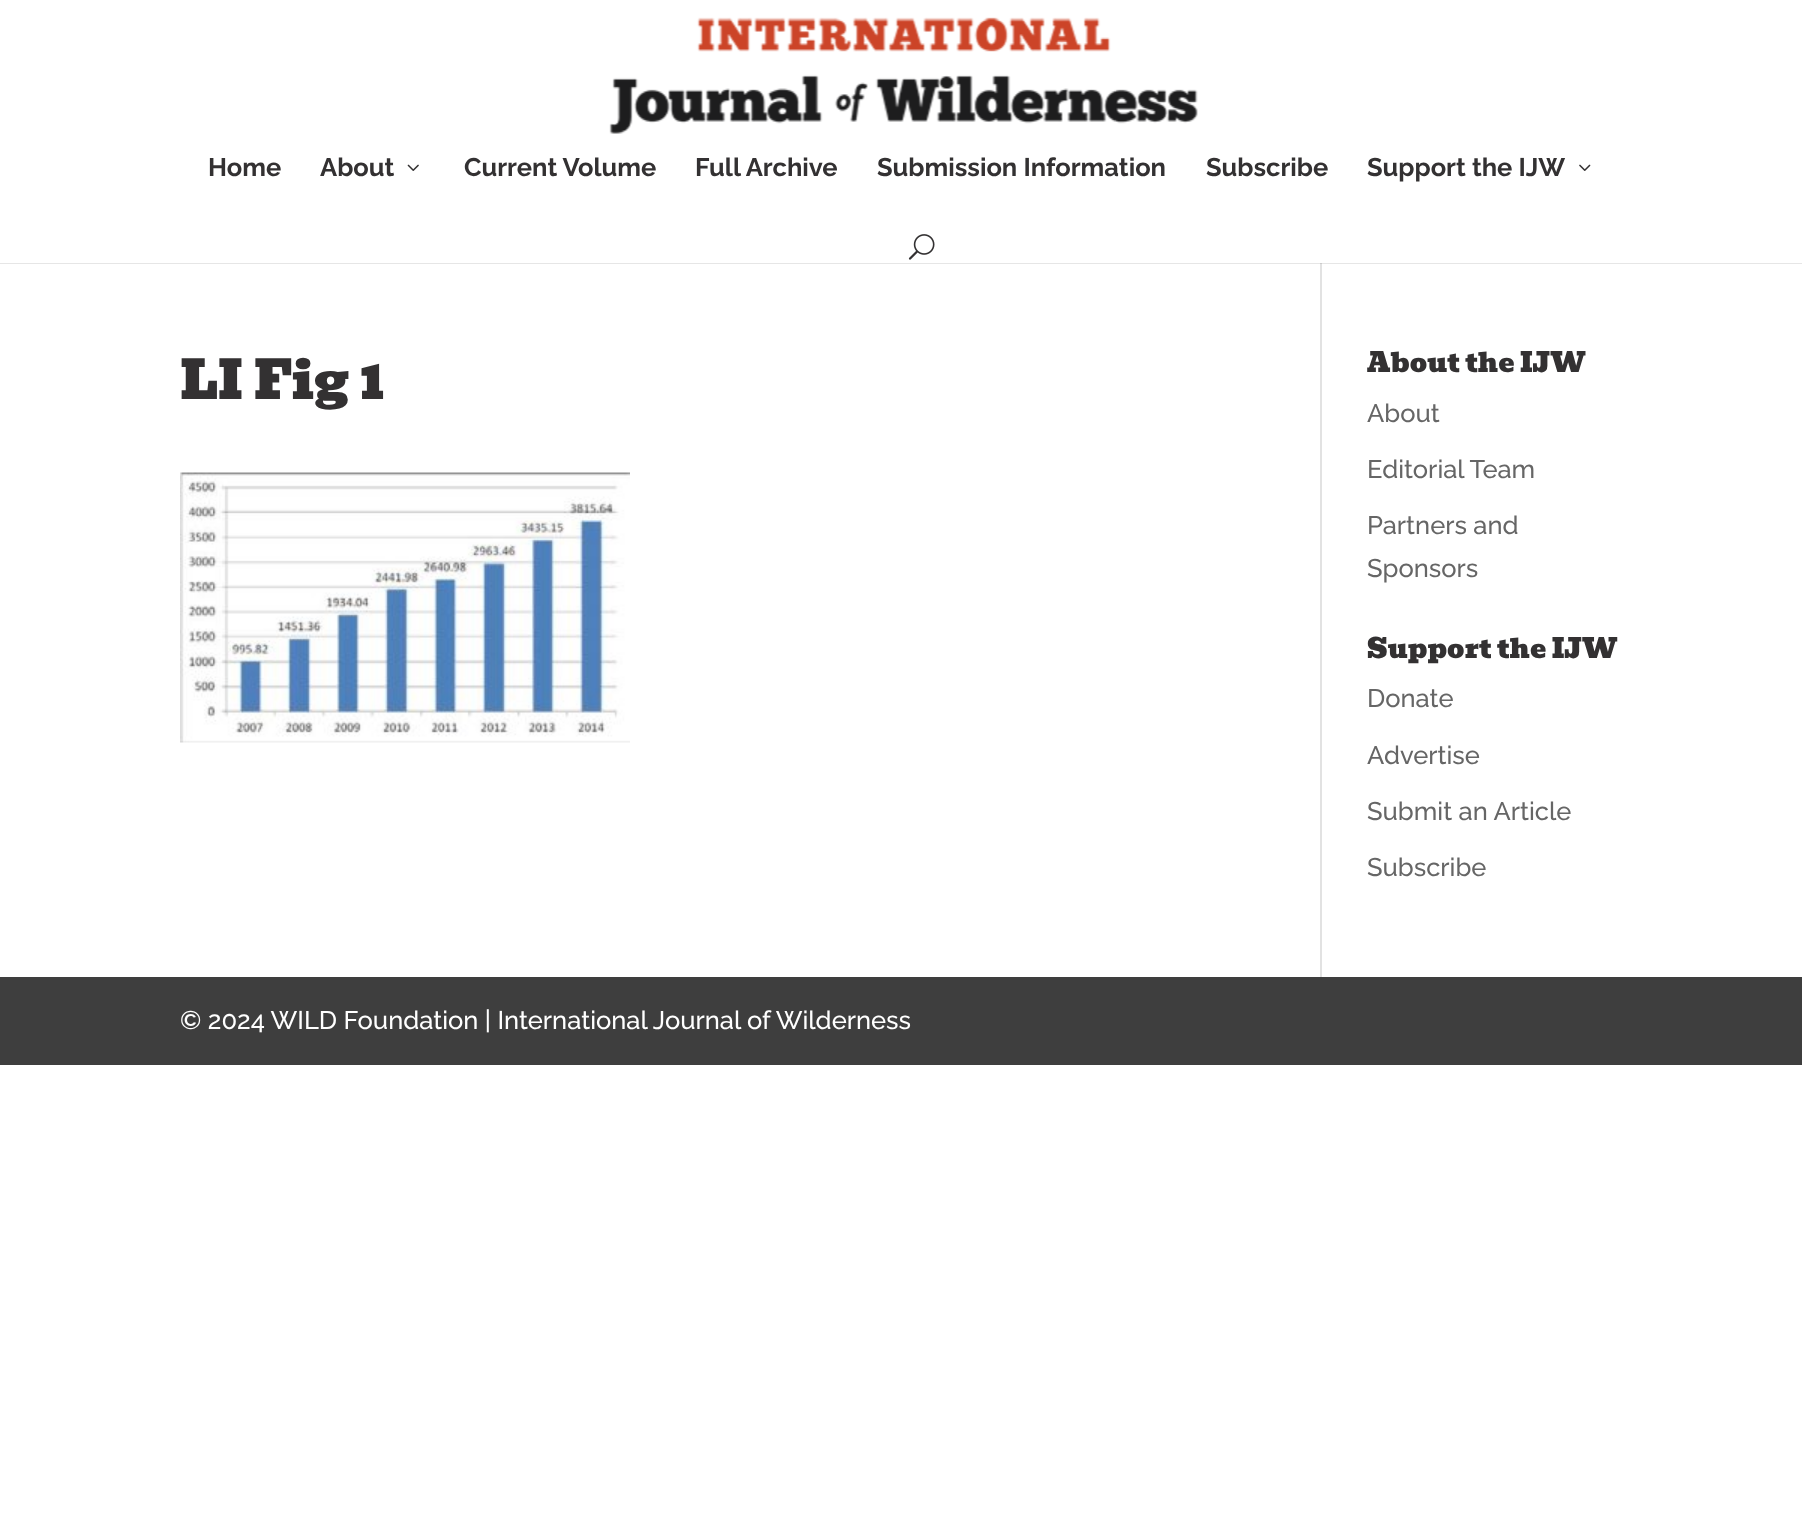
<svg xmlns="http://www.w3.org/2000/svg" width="1802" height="1519">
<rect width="100%" height="100%" fill="#fff"/>
<rect y="263" width="1802" height="1" fill="#e6e6e6"/>
<image x="609" y="17" width="589" height="117" href="media/1.png"/>
<text x="208" y="176" style="font-family:Raleway;font-size:25.5px;font-weight:bold;fill:#333132">Home</text>
<text x="320" y="176" style="font-family:Raleway;font-size:25.5px;font-weight:bold;fill:#333132">About</text>
<image x="407" y="164" width="12" height="7" href="media/2.png"/>
<text x="464" y="176" style="font-family:Raleway;font-size:25.5px;font-weight:bold;fill:#333132">Current Volume</text>
<text x="695" y="176" style="font-family:Raleway;font-size:25.5px;font-weight:bold;fill:#333132">Full Archive</text>
<text x="877" y="176" style="font-family:Raleway;font-size:25.5px;font-weight:bold;fill:#333132">Submission Information</text>
<text x="1206" y="176" style="font-family:Raleway;font-size:25.5px;font-weight:bold;fill:#333132">Subscribe</text>
<text x="1367" y="176" style="font-family:Raleway;font-size:25.5px;font-weight:bold;fill:#333132">Support the IJW</text>
<image x="1579" y="164" width="12" height="7" href="media/3.png"/>
<image x="908" y="234" width="27" height="26" href="media/4.png"/>
<rect x="1320" y="263" width="2" height="714" fill="#e2e2e2"/>
<rect x="1320" y="263" width="2" height="1" fill="#cbcbcb"/>
<text x="180" y="399" style="font-family:Bevan;font-size:52.5px;fill:#333132">LI Fig 1</text>
<image x="180" y="472" width="450" height="271" href="media/5.png"/>
<text x="1367" y="372" style="font-family:Bevan;font-size:27px;fill:#333132">About the IJW</text>
<text x="1367" y="422" style="font-family:Raleway;font-size:25.5px;font-weight:500;fill:#666">About</text>
<text x="1367" y="478" style="font-family:Raleway;font-size:25.5px;font-weight:500;fill:#666">Editorial Team</text>
<text x="1367" y="534" style="font-family:Raleway;font-size:25.5px;font-weight:500;fill:#666">Partners and</text>
<text x="1367" y="577" style="font-family:Raleway;font-size:25.5px;font-weight:500;fill:#666">Sponsors</text>
<text x="1367" y="658" style="font-family:Bevan;font-size:27px;fill:#333132">Support the IJW</text>
<text x="1367" y="707" style="font-family:Raleway;font-size:25.5px;font-weight:500;fill:#666">Donate</text>
<text x="1367" y="764" style="font-family:Raleway;font-size:25.5px;font-weight:500;fill:#666">Advertise</text>
<text x="1367" y="820" style="font-family:Raleway;font-size:25.5px;font-weight:500;fill:#666">Submit an Article</text>
<text x="1367" y="876" style="font-family:Raleway;font-size:25.5px;font-weight:500;fill:#666">Subscribe</text>
<rect y="977" width="1802" height="88" fill="#3e3e3e"/>
<text x="180" y="1029" style="font-family:Raleway;font-size:25.5px;font-weight:500;fill:#fff">© 2024 WILD Foundation | International Journal of Wilderness</text>
</svg>
